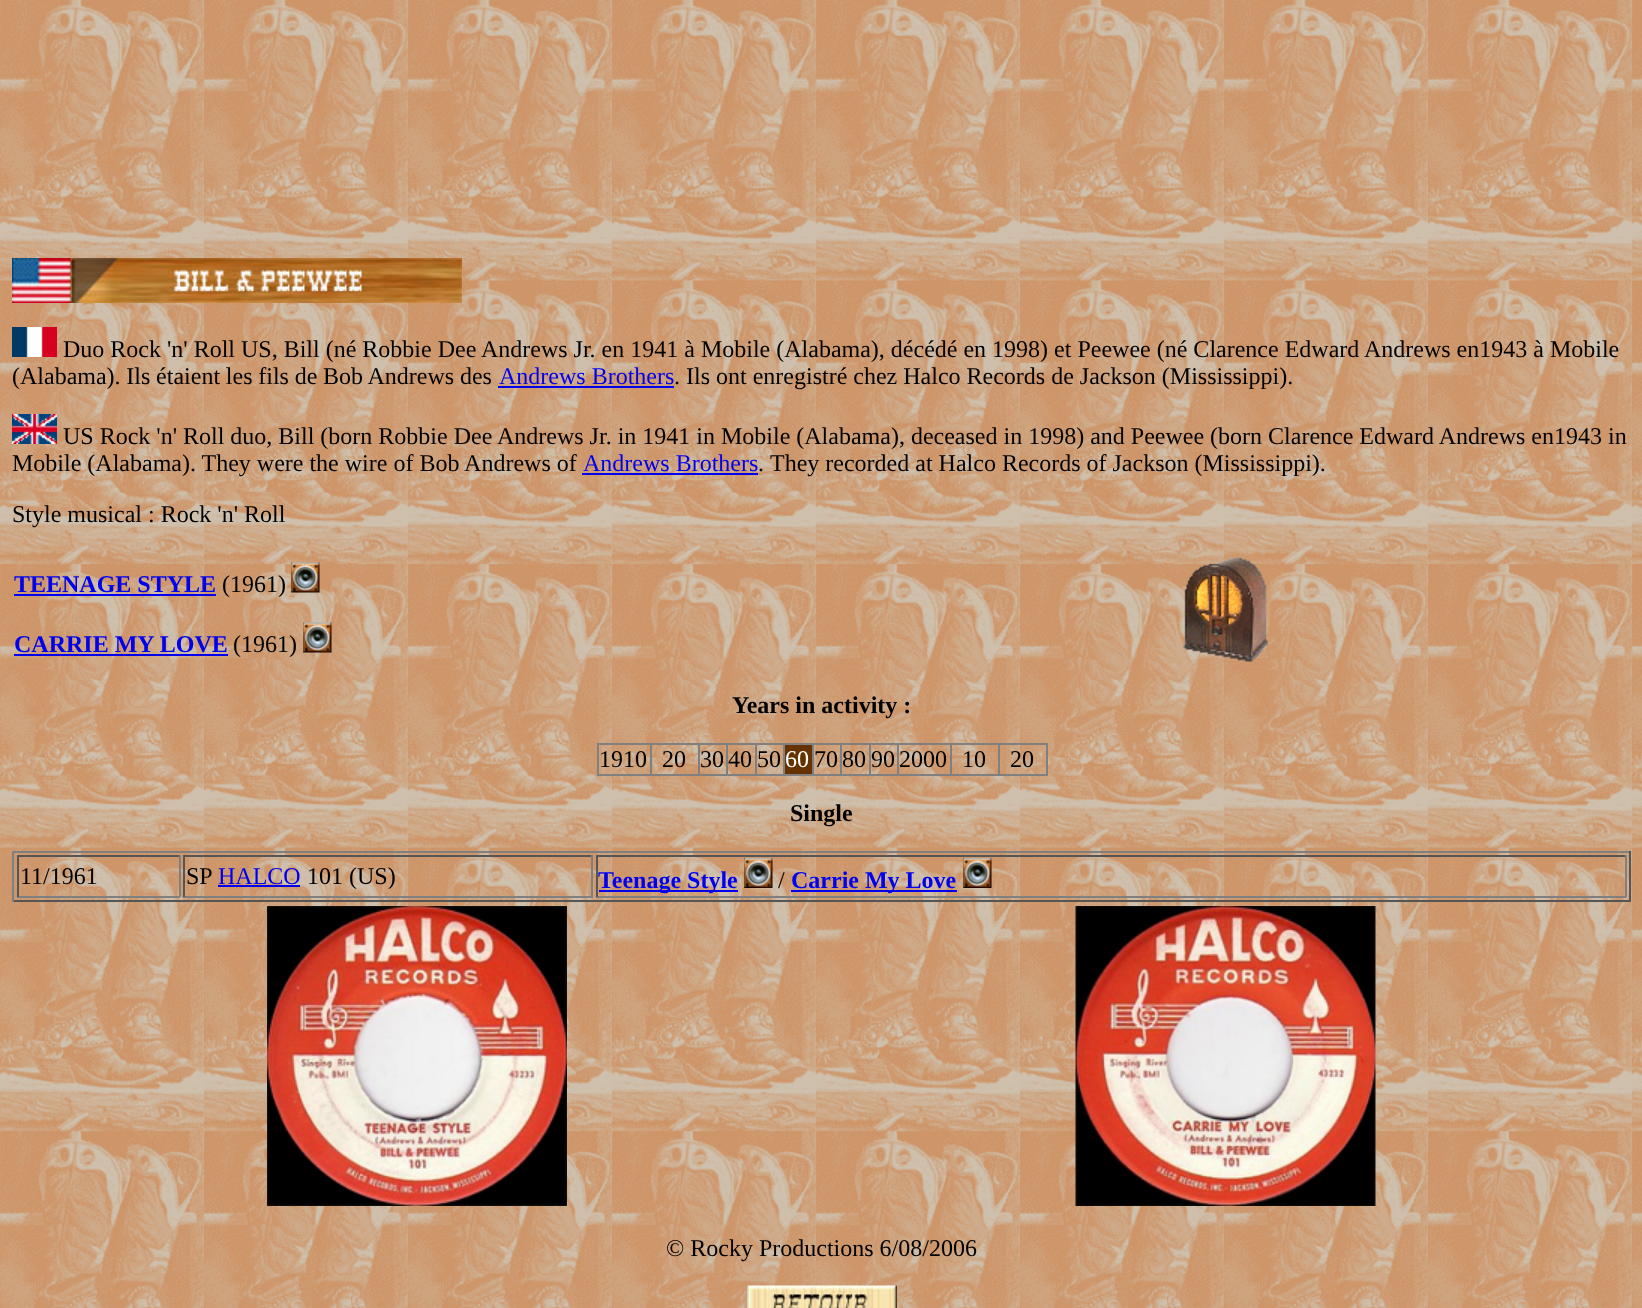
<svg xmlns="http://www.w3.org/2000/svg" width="1642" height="1308">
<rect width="100%" height="100%" fill="#fff"/>
<image x="0" y="0" width="1642" height="1308" href="media/1.png"/>
<image x="12" y="258" width="450" height="45" href="media/2.png"/>
<image x="12" y="327" width="45" height="30" href="media/3.png"/>
<text x="63" y="357" style="font-family:Liberation Serif;font-size:24px;fill:#000">Duo Rock 'n' Roll US, Bill (né Robbie Dee Andrews Jr. en 1941 à Mobile (Alabama), décédé en 1998) et Peewee (né Clarence Edward Andrews en1943 à Mobile</text>
<text x="12" y="384" word-spacing="-0.25" style="font-family:Liberation Serif;font-size:24px;fill:#000">(Alabama). Ils étaient les fils de Bob Andrews des</text>
<text x="499" y="384" style="font-family:Liberation Serif;font-size:24px;fill:#00e">Andrews Brothers</text>
<rect x="498" y="386" width="176" height="2" fill="#00e"/>
<text x="674" y="384" style="font-family:Liberation Serif;font-size:24px;fill:#000">. Ils ont enregistré chez Halco Records de Jackson (Mississippi).</text>
<image x="12" y="414" width="45" height="30" href="media/4.png"/>
<text x="63" y="444" style="font-family:Liberation Serif;font-size:24px;fill:#000">US Rock 'n' Roll duo, Bill (born Robbie Dee Andrews Jr. in 1941 in Mobile (Alabama), deceased in 1998) and Peewee (born Clarence Edward Andrews en1943 in</text>
<text x="12" y="471" style="font-family:Liberation Serif;font-size:24px;fill:#000">Mobile (Alabama). They were the wire of Bob Andrews of</text>
<text x="583" y="471" style="font-family:Liberation Serif;font-size:24px;fill:#00e">Andrews Brothers</text>
<rect x="582" y="473" width="176" height="2" fill="#00e"/>
<text x="758" y="471" style="font-family:Liberation Serif;font-size:24px;fill:#000">.</text>
<text x="770" y="471" style="font-family:Liberation Serif;font-size:24px;fill:#000">They recorded at Halco Records of Jackson (Mississippi).</text>
<text x="12" y="522" style="font-family:Liberation Serif;font-size:24px;fill:#000">Style musical : Rock 'n' Roll</text>
<text x="14" y="592" style="font-family:Liberation Serif;font-size:24px;font-weight:bold;fill:#00e">TEENAGE STYLE</text>
<rect x="14" y="594" width="202" height="2" fill="#00e"/>
<text x="222" y="592" style="font-family:Liberation Serif;font-size:24px;fill:#000">(1961)</text>
<image x="291" y="562" width="29" height="31" href="media/5.png"/>
<text x="14" y="652" style="font-family:Liberation Serif;font-size:24px;font-weight:bold;fill:#00e">CARRIE MY LOVE</text>
<rect x="14" y="654" width="214" height="2" fill="#00e"/>
<text x="233" y="652" style="font-family:Liberation Serif;font-size:24px;fill:#000">(1961)</text>
<image x="303" y="622" width="29" height="31" href="media/6.png"/>
<image x="1183" y="557" width="85" height="105" href="media/7.png"/>
<text x="732" y="713" style="font-family:Liberation Serif;font-size:24px;font-weight:bold;fill:#000">Years in activity :</text>
<rect x="597" y="743" width="450" height="2" fill="#808080"/>
<rect x="1046" y="743" width="2" height="33" fill="#808080"/>
<rect x="597" y="774" width="450" height="2" fill="#808080"/>
<rect x="597" y="743" width="2" height="33" fill="#808080"/>
<text x="599" y="767" style="font-family:Liberation Serif;font-size:24px;fill:#000">1910</text>
<rect x="650" y="743" width="2" height="33" fill="#808080"/>
<text x="662" y="767" style="font-family:Liberation Serif;font-size:24px;fill:#000">20</text>
<rect x="698" y="743" width="2" height="33" fill="#808080"/>
<text x="700" y="767" style="font-family:Liberation Serif;font-size:24px;fill:#000">30</text>
<rect x="726" y="743" width="2" height="33" fill="#808080"/>
<text x="728" y="767" style="font-family:Liberation Serif;font-size:24px;fill:#000">40</text>
<rect x="755" y="743" width="2" height="33" fill="#808080"/>
<text x="757" y="767" style="font-family:Liberation Serif;font-size:24px;fill:#000">50</text>
<rect x="785" y="745" width="27" height="29" fill="#630"/>
<rect x="783" y="743" width="2" height="33" fill="#808080"/>
<text x="785" y="767" style="font-family:Liberation Serif;font-size:24px;fill:#fff">60</text>
<rect x="812" y="743" width="2" height="33" fill="#808080"/>
<text x="814" y="767" style="font-family:Liberation Serif;font-size:24px;fill:#000">70</text>
<rect x="840" y="743" width="2" height="33" fill="#808080"/>
<text x="842" y="767" style="font-family:Liberation Serif;font-size:24px;fill:#000">80</text>
<rect x="869" y="743" width="2" height="33" fill="#808080"/>
<text x="871" y="767" style="font-family:Liberation Serif;font-size:24px;fill:#000">90</text>
<rect x="897" y="743" width="2" height="33" fill="#808080"/>
<text x="899" y="767" style="font-family:Liberation Serif;font-size:24px;fill:#000">2000</text>
<rect x="950" y="743" width="2" height="33" fill="#808080"/>
<text x="962" y="767" style="font-family:Liberation Serif;font-size:24px;fill:#000">10</text>
<rect x="998" y="743" width="2" height="33" fill="#808080"/>
<text x="1010" y="767" style="font-family:Liberation Serif;font-size:24px;fill:#000">20</text>
<text x="790" y="821" style="font-family:Liberation Serif;font-size:24px;font-weight:bold;fill:#000">Single</text>
<rect x="12" y="851" width="1619" height="2" fill="#808080"/>
<rect x="1629" y="851" width="2" height="51" fill="#555"/>
<rect x="12" y="900" width="1619" height="2" fill="#555"/>
<rect x="12" y="851" width="2" height="51" fill="#808080"/>
<rect x="17" y="855" width="163" height="2" fill="#555"/>
<rect x="179" y="855" width="2" height="42" fill="#808080"/>
<rect x="17" y="896" width="163" height="2" fill="#808080"/>
<rect x="17" y="855" width="2" height="42" fill="#555"/>
<text x="20" y="884" style="font-family:Liberation Serif;font-size:24px;fill:#000">11/1961</text>
<rect x="183" y="855" width="410" height="2" fill="#555"/>
<rect x="591" y="855" width="2" height="42" fill="#808080"/>
<rect x="183" y="896" width="410" height="2" fill="#808080"/>
<rect x="183" y="855" width="2" height="42" fill="#555"/>
<text x="186" y="884" style="font-family:Liberation Serif;font-size:24px;fill:#000">SP</text>
<text x="218" y="884" style="font-family:Liberation Serif;font-size:24px;fill:#00e">HALCO</text>
<rect x="218" y="885" width="82" height="2" fill="#00e"/>
<text x="307" y="884" style="font-family:Liberation Serif;font-size:24px;fill:#000">101 (US)</text>
<rect x="596" y="855" width="1030" height="2" fill="#555"/>
<rect x="1625" y="855" width="2" height="42" fill="#808080"/>
<rect x="596" y="896" width="1030" height="2" fill="#808080"/>
<rect x="596" y="855" width="2" height="42" fill="#555"/>
<rect x="599" y="890" width="139" height="2" fill="#00e"/>
<text x="598" y="888" style="font-family:Liberation Serif;font-size:24px;font-weight:bold;fill:#00e">Teenage Style</text>
<image x="744" y="858" width="29" height="30" href="media/8.png"/>
<text x="778" y="888" style="font-family:Liberation Serif;font-size:24px;fill:#000">/</text>
<rect x="791" y="890" width="166" height="2" fill="#00e"/>
<text x="791" y="888" style="font-family:Liberation Serif;font-size:24px;font-weight:bold;fill:#00e">Carrie My Love</text>
<image x="963" y="858" width="29" height="30" href="media/9.png"/>
<image x="267" y="906" width="300" height="300" href="media/10.png"/>
<image x="1075" y="906" width="301" height="300" href="media/11.png"/>
<text x="666" y="1256" style="font-family:Liberation Serif;font-size:24px;fill:#000">© Rocky Productions 6/08/2006</text>
<image x="747" y="1285" width="150" height="23" href="media/12.png"/>
</svg>
